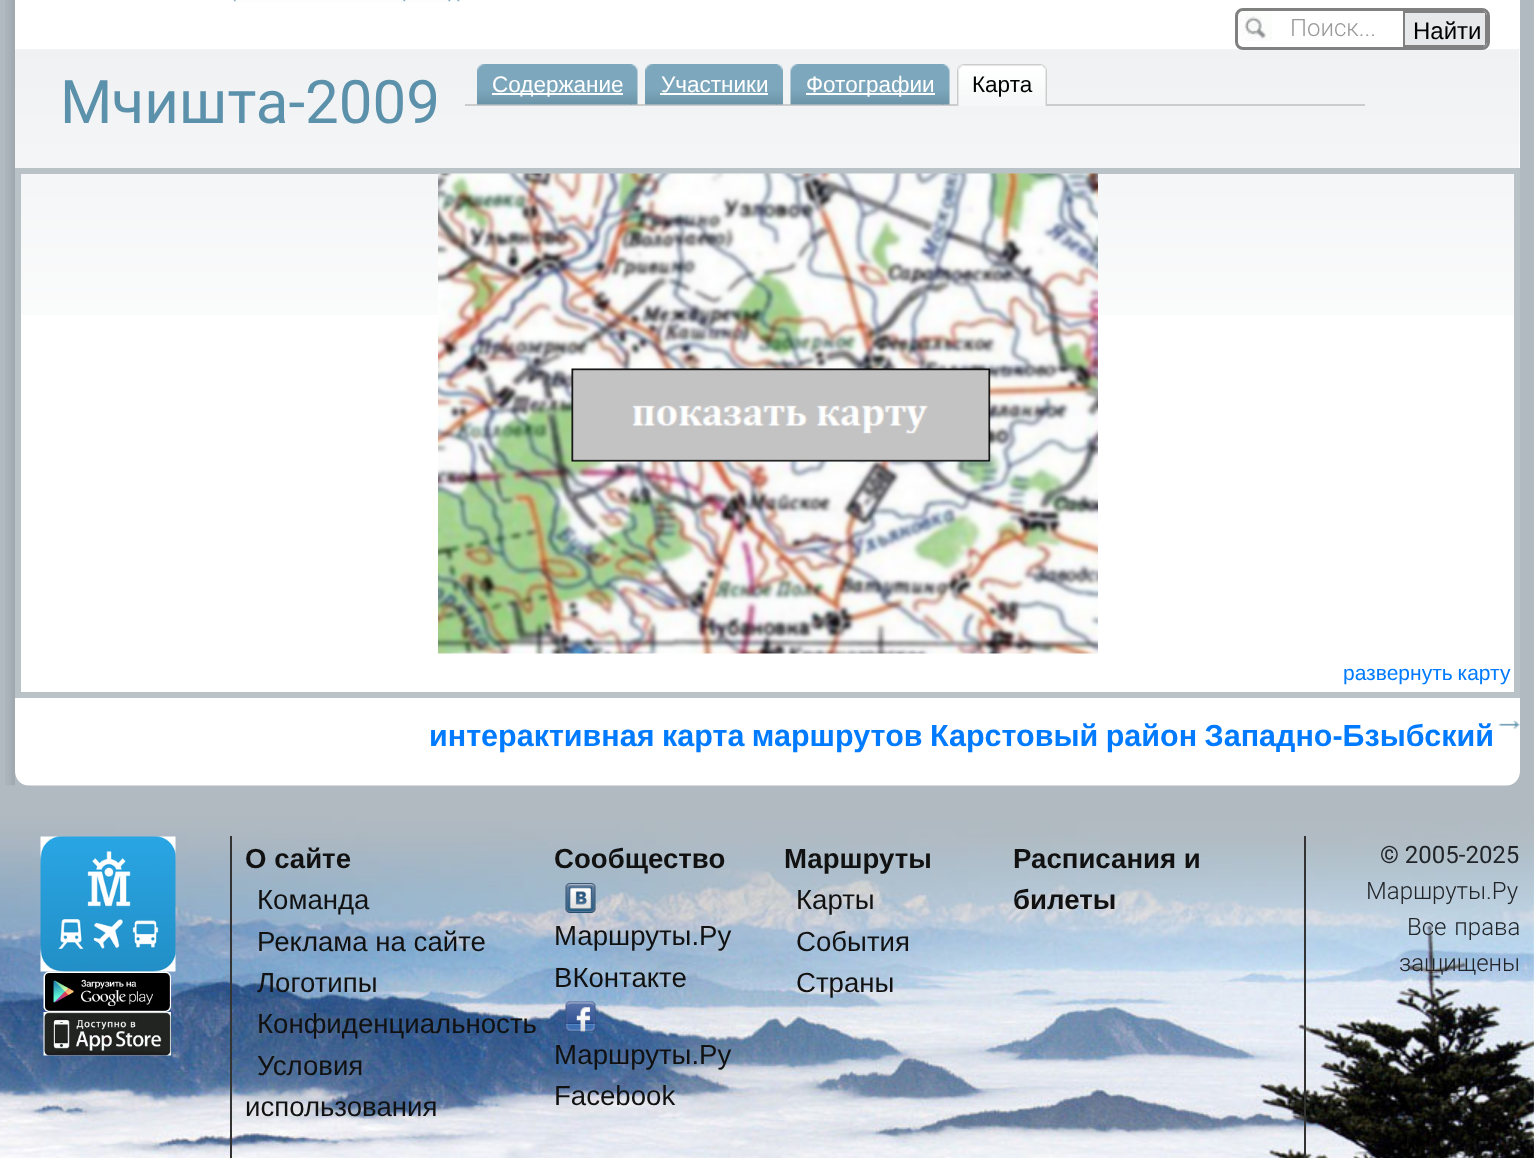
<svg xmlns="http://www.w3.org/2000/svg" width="1534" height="1158">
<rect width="100%" height="100%" fill="#b1bac1"/>
<image x="5" y="0" width="10" height="786" href="media/1.png"/>
<rect x="15" width="1505" height="50" fill="#fff"/>
<image x="233" y="0" width="227" height="2" href="media/2.png"/>
<image x="1237" y="10" width="35" height="31" href="media/3.png"/>
<path d="M15 50h1505v721c0 8.5-6.5 15-15 15h-1475c-8.5 0-15-6.5-15-15z" fill="#fff"/>
<image x="15" y="49" width="1505" height="266" href="media/4.png"/>
<rect x="1236.5" y="9.5" width="252" height="39" rx="6.5" fill="none" stroke="#808080" stroke-width="3"/>
<text x="1290" y="36" style="font-family:Roboto;font-size:24px;font-weight:300;fill:#999">Поиск...</text>
<path d="M1403 11h79c3 0 5 2 5 5v26c0 3-2 5-5 5h-79z" fill="#e6e8e9"/>
<path d="M1403 11v36h79c3 0 5-2 5-5v-26c0-3-2-5-5-5zm2 2v32h80v-32z" fill="#808080" fill-rule="evenodd"/>
<text x="1413" y="39" style="font-family:Liberation Sans;font-size:24px;fill:#000">Найти</text>
<text x="60" y="123" style="font-family:Roboto;font-size:60px;fill:#5c91ab">Мчишта-2009</text>
<rect x="465" y="104" width="900" height="2" fill="#ccc"/>
<image x="630" y="64" width="8" height="41" href="media/5.png"/>
<image x="477" y="64" width="155" height="41" href="media/6.png"/>
<rect x="492" y="93" width="131" height="2" fill="#fff"/>
<text x="492" y="92" style="font-family:Liberation Sans;font-size:22.5px;fill:#fff">Содержание</text>
<image x="775" y="64" width="8" height="41" href="media/7.png"/>
<image x="645" y="64" width="132" height="41" href="media/8.png"/>
<text x="661" y="92" style="font-family:Liberation Sans;font-size:22.5px;fill:#fff">Участники</text>
<rect x="660" y="93" width="108" height="2" fill="#fff"/>
<image x="942" y="64" width="8" height="41" href="media/5.png"/>
<image x="790" y="64" width="154" height="41" href="media/9.png"/>
<rect x="806" y="93" width="129" height="2" fill="#fff"/>
<text x="806" y="92" style="font-family:Liberation Sans;font-size:22.5px;fill:#fff">Фотографии</text>
<image x="1041" y="64" width="6" height="42" href="media/10.png"/>
<image x="957" y="64" width="84" height="42" href="media/11.png"/>
<text x="972" y="92" style="font-family:Liberation Sans;font-size:22.5px;fill:#000">Карта</text>
<rect x="18" y="171" width="1499" height="524" fill="none" stroke="#b8c2c7" stroke-width="6"/>
<image x="438" y="173" width="660" height="481" href="media/12.png"/>
<text x="1343" y="680" word-spacing="-1" style="font-family:Liberation Sans;font-size:21px;fill:#007bff">развернуть карту</text>
<image x="1498" y="720" width="22" height="9" href="media/13.png"/>
<text x="429" y="746" word-spacing="-1" style="font-family:Liberation Sans;font-size:30.5px;font-weight:bold;fill:#007bff">интерактивная карта маршрутов Карстовый район Западно-Бзыбский</text>
<image x="0" y="785" width="1534" height="373" href="media/14.png"/>
<rect x="230" y="836" width="2" height="322" fill="#333"/>
<image x="40" y="836" width="136" height="136" href="media/15.png"/>
<image x="43" y="971" width="128" height="41" href="media/16.png"/>
<image x="43" y="1012" width="128" height="44" href="media/17.png"/>
<text x="245" y="868" style="font-family:Liberation Sans;font-size:27.6px;font-weight:bold;fill:#111">О сайте</text>
<text x="257" y="909" style="font-family:Liberation Sans;font-size:27.6px;fill:#111">Команда</text>
<text x="257" y="951" style="font-family:Liberation Sans;font-size:27.6px;fill:#111">Реклама на сайте</text>
<text x="257" y="992" style="font-family:Liberation Sans;font-size:27.6px;fill:#111">Логотипы</text>
<text x="257" y="1033" style="font-family:Liberation Sans;font-size:27.6px;fill:#111">Конфиденциальность</text>
<text x="257" y="1075" style="font-family:Liberation Sans;font-size:27.6px;fill:#111">Условия</text>
<text x="245" y="1116" style="font-family:Liberation Sans;font-size:27.6px;fill:#111">использования</text>
<text x="554" y="868" style="font-family:Liberation Sans;font-size:27.6px;font-weight:bold;fill:#111">Сообщество</text>
<image x="565" y="883" width="31" height="30" href="media/18.png"/>
<text x="554" y="945" style="font-family:Liberation Sans;font-size:27.6px;fill:#111">Маршруты.Ру</text>
<text x="554" y="987" style="font-family:Liberation Sans;font-size:27.6px;fill:#111">ВКонтакте</text>
<image x="565" y="1001" width="31" height="31" href="media/19.png"/>
<text x="554" y="1064" style="font-family:Liberation Sans;font-size:27.6px;fill:#111">Маршруты.Ру</text>
<text x="554" y="1105" style="font-family:Liberation Sans;font-size:27.6px;fill:#111">Facebook</text>
<text x="784" y="868" style="font-family:Liberation Sans;font-size:27.6px;font-weight:bold;fill:#111">Маршруты</text>
<text x="796" y="909" style="font-family:Liberation Sans;font-size:27.6px;fill:#111">Карты</text>
<text x="796" y="951" style="font-family:Liberation Sans;font-size:27.6px;fill:#111">События</text>
<text x="796" y="992" style="font-family:Liberation Sans;font-size:27.6px;fill:#111">Страны</text>
<text x="1013" y="868" style="font-family:Liberation Sans;font-size:27.6px;font-weight:bold;fill:#111">Расписания и</text>
<text x="1013" y="909" style="font-family:Liberation Sans;font-size:27.6px;font-weight:bold;fill:#111">билеты</text>
<rect x="1304" y="836" width="2" height="322" fill="#333"/>
<text x="1380" y="863" style="font-family:Roboto;font-size:24px;fill:#212529">© 2005-2025</text>
<text x="1366" y="899" style="font-family:Roboto;font-size:24px;font-weight:300;fill:#212529">Маршруты.Ру</text>
<text x="1407" y="935" word-spacing="2" style="font-family:Roboto;font-size:24px;font-weight:300;fill:#212529">Все права</text>
<text x="1399" y="971" style="font-family:Roboto;font-size:24px;font-weight:300;fill:#212529">защищены</text>
</svg>
